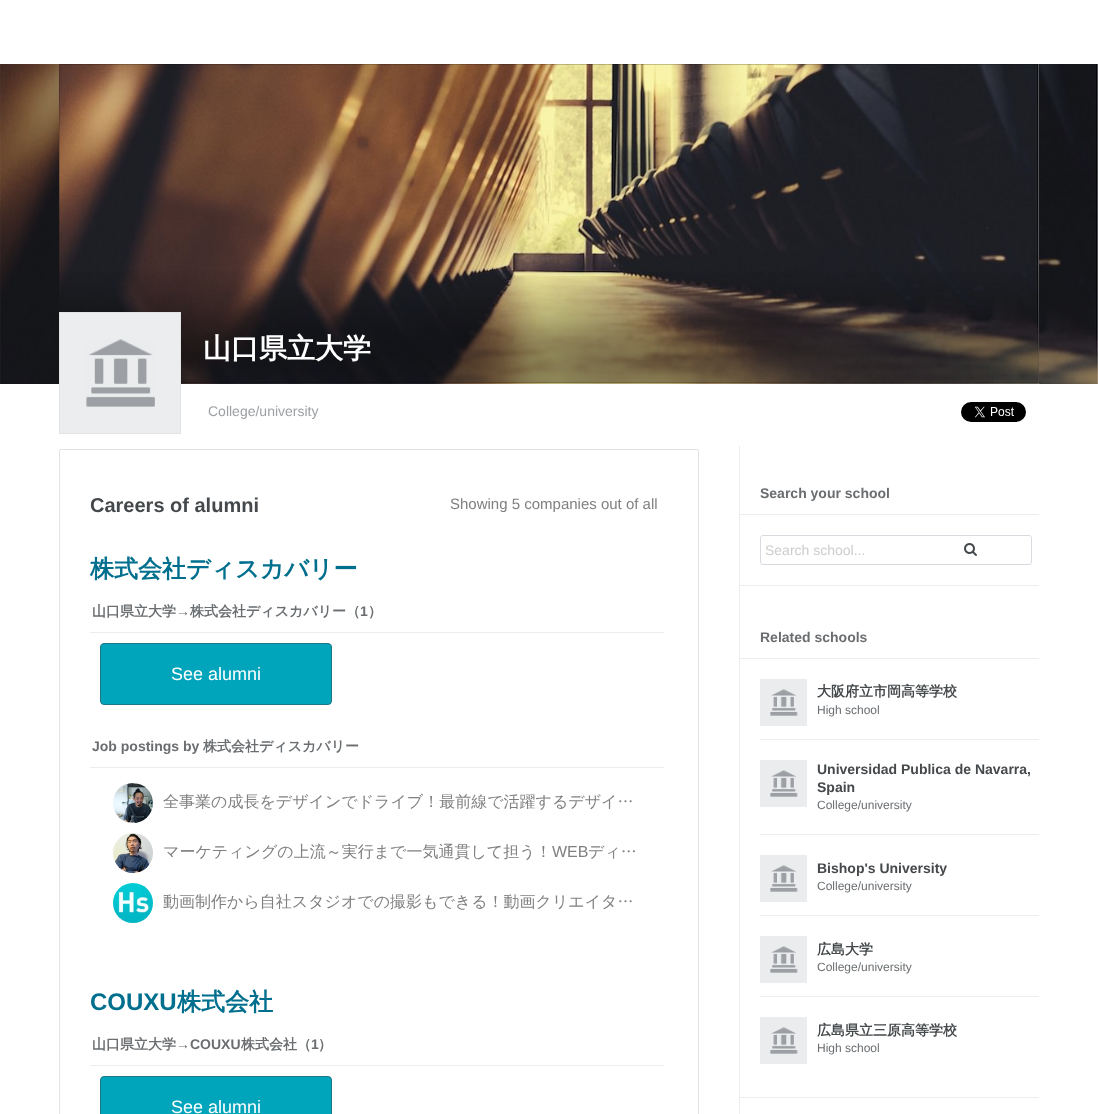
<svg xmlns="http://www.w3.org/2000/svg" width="1098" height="1114">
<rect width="100%" height="100%" fill="#fff"/>
<image x="0" y="64" width="1098" height="320" href="media/1.png"/>
<image x="59" y="64" width="980" height="320" href="media/2.png"/>
<image x="59" y="271" width="980" height="112" href="media/3.png"/>
<rect x="59.5" y="64.5" width="979" height="319" fill="none" stroke="#00000036"/>
<rect x="59.5" y="312.5" width="121" height="121" fill="#ebedef" stroke="#e3e3e3"/>
<image x="86" y="339" width="69" height="68" href="media/4.png"/>
<text x="203" y="358" style="font-family:WenQuanYi Zen Hei;font-size:28px;font-weight:bold;fill:#fff">山口県立大学</text>
<text x="208" y="416" style="font-family:Liberation Sans;font-size:14px;fill:#9da0a4">College/university</text>
<image x="961" y="402" width="65" height="20" href="media/5.png"/>
<rect x="739" y="446" width="1" height="668" fill="#ebedef"/>
<rect x="59.5" y="449.5" width="639" height="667" rx="1.5" fill="none" stroke="#e3e3e3"/>
<text x="90" y="512" style="font-family:Liberation Sans;font-size:20px;font-weight:bold;fill:#45494b">Careers of alumni</text>
<text x="450" y="509" style="font-family:Liberation Sans;font-size:15px;fill:#808080">Showing 5 companies out of all</text>
<text x="90" y="577" style="font-family:WenQuanYi Zen Hei;font-size:24px;font-weight:bold;fill:#006f8e">株式会社ディスカバリー</text>
<rect x="90" y="632" width="574" height="1" fill="#ebedef"/>
<text x="92" y="616" style="font-family:WenQuanYi Zen Hei;font-size:14px;font-weight:bold;fill:#6a6e71">山口県立大学</text>
<text x="176" y="616" style="font-family:Liberation Sans;font-size:14px;font-weight:bold;fill:#6a6e71">→</text>
<text x="190" y="616" style="font-family:WenQuanYi Zen Hei;font-size:14px;font-weight:bold;fill:#6a6e71">株式会社ディスカバリー（</text>
<text x="360" y="616" style="font-family:Liberation Sans;font-size:14px;font-weight:bold;fill:#6a6e71">1</text>
<text x="368" y="616" style="font-family:WenQuanYi Zen Hei;font-size:14px;font-weight:bold;fill:#6a6e71">）</text>
<rect x="100.5" y="643.5" width="231" height="61" rx="3.5" fill="#00a4bb" stroke="#1e7785"/>
<text x="171" y="680" style="font-family:Liberation Sans;font-size:18px;fill:#fff">See alumni</text>
<rect x="90" y="767" width="574" height="1" fill="#ebedef"/>
<text x="92" y="751" style="font-family:Liberation Sans;font-size:14px;font-weight:bold;fill:#6a6e71">Job postings by</text>
<text x="203" y="751" style="font-family:WenQuanYi Zen Hei;font-size:14px;font-weight:bold;fill:#6a6e71">株式会社ディスカバリー</text>
<image x="113" y="783" width="40" height="40" href="media/6.png"/>
<text x="163" y="807" style="font-family:WenQuanYi Zen Hei;font-size:16px;font-weight:500;fill:#808080">全事業の成長をデザインでドライブ！最前線で活躍するデザイ…</text>
<image x="113" y="833" width="40" height="40" href="media/7.png"/>
<text x="163" y="857" style="font-family:WenQuanYi Zen Hei;font-size:16px;font-weight:500;fill:#808080">マーケティングの上流～実行まで一気通貫して担う！</text>
<text x="552" y="857" style="font-family:Liberation Sans;font-size:16px;fill:#808080">WEB</text>
<text x="588" y="857" style="font-family:WenQuanYi Zen Hei;font-size:16px;font-weight:500;fill:#808080">ディ…</text>
<image x="113" y="883" width="40" height="40" href="media/8.png"/>
<text x="163" y="907" style="font-family:WenQuanYi Zen Hei;font-size:16px;font-weight:500;fill:#808080">動画制作から自社スタジオでの撮影もできる！動画クリエイタ…</text>
<text x="90" y="1010" style="font-family:Liberation Sans;font-size:24px;font-weight:bold;fill:#006f8e">COUXU</text>
<text x="177" y="1010" style="font-family:WenQuanYi Zen Hei;font-size:24px;font-weight:bold;fill:#006f8e">株式会社</text>
<rect x="90" y="1065" width="574" height="1" fill="#ebedef"/>
<text x="92" y="1049" style="font-family:WenQuanYi Zen Hei;font-size:14px;font-weight:bold;fill:#6a6e71">山口県立大学</text>
<text x="176" y="1049" style="font-family:Liberation Sans;font-size:14px;font-weight:bold;fill:#6a6e71">→COUXU</text>
<text x="241" y="1049" style="font-family:WenQuanYi Zen Hei;font-size:14px;font-weight:bold;fill:#6a6e71">株式会社（</text>
<text x="311" y="1049" style="font-family:Liberation Sans;font-size:14px;font-weight:bold;fill:#6a6e71">1</text>
<text x="318" y="1049" style="font-family:WenQuanYi Zen Hei;font-size:14px;font-weight:bold;fill:#6a6e71">）</text>
<rect x="100.5" y="1076.5" width="231" height="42" rx="3.5" fill="#00a4bb" stroke="#1e7785"/>
<text x="171" y="1113" style="font-family:Liberation Sans;font-size:18px;fill:#fff">See alumni</text>
<rect x="740" y="585" width="299" height="1" fill="#ebedef"/>
<rect x="740" y="514" width="299" height="1" fill="#ebedef"/>
<text x="760" y="498" style="font-family:Liberation Sans;font-size:14px;font-weight:bold;fill:#6a6e71">Search your school</text>
<rect x="760.5" y="535.5" width="271" height="29" rx="2.5" fill="none" stroke="#d7dbdf"/>
<text x="765" y="555" style="font-family:Liberation Sans;font-size:14px;fill:#ccc">Search school...</text>
<image x="964" y="543" width="13" height="13" href="media/9.png"/>
<rect x="740" y="1097" width="299" height="1" fill="#ebedef"/>
<rect x="740" y="658" width="299" height="1" fill="#ebedef"/>
<text x="760" y="642" style="font-family:Liberation Sans;font-size:14px;font-weight:bold;fill:#6a6e71">Related schools</text>
<image x="760" y="679" width="47" height="47" href="media/10.png"/>
<text x="817" y="696" style="font-family:WenQuanYi Zen Hei;font-size:14px;font-weight:bold;fill:#45494b">大阪府立市岡高等学校</text>
<text x="817" y="714" style="font-family:Liberation Sans;font-size:12px;fill:#6a6e71">High school</text>
<rect x="760" y="739" width="279" height="1" fill="#ebedef"/>
<image x="760" y="760" width="47" height="47" href="media/10.png"/>
<text x="817" y="774" style="font-family:Liberation Sans;font-size:14px;font-weight:bold;fill:#45494b">Universidad Publica de Navarra,</text>
<text x="817" y="792" style="font-family:Liberation Sans;font-size:14px;font-weight:bold;fill:#45494b">Spain</text>
<text x="817" y="809" style="font-family:Liberation Sans;font-size:12px;fill:#6a6e71">College/university</text>
<rect x="760" y="834" width="279" height="1" fill="#ebedef"/>
<image x="760" y="855" width="47" height="47" href="media/10.png"/>
<text x="817" y="873" style="font-family:Liberation Sans;font-size:14px;font-weight:bold;fill:#45494b">Bishop's University</text>
<text x="817" y="890" style="font-family:Liberation Sans;font-size:12px;fill:#6a6e71">College/university</text>
<rect x="760" y="915" width="279" height="1" fill="#ebedef"/>
<image x="760" y="936" width="47" height="47" href="media/10.png"/>
<text x="817" y="954" style="font-family:WenQuanYi Zen Hei;font-size:14px;font-weight:bold;fill:#45494b">広島大学</text>
<text x="817" y="971" style="font-family:Liberation Sans;font-size:12px;fill:#6a6e71">College/university</text>
<rect x="760" y="996" width="279" height="1" fill="#ebedef"/>
<image x="760" y="1017" width="47" height="47" href="media/10.png"/>
<text x="817" y="1035" style="font-family:WenQuanYi Zen Hei;font-size:14px;font-weight:bold;fill:#45494b">広島県立三原高等学校</text>
<text x="817" y="1052" style="font-family:Liberation Sans;font-size:12px;fill:#6a6e71">High school</text>
</svg>
